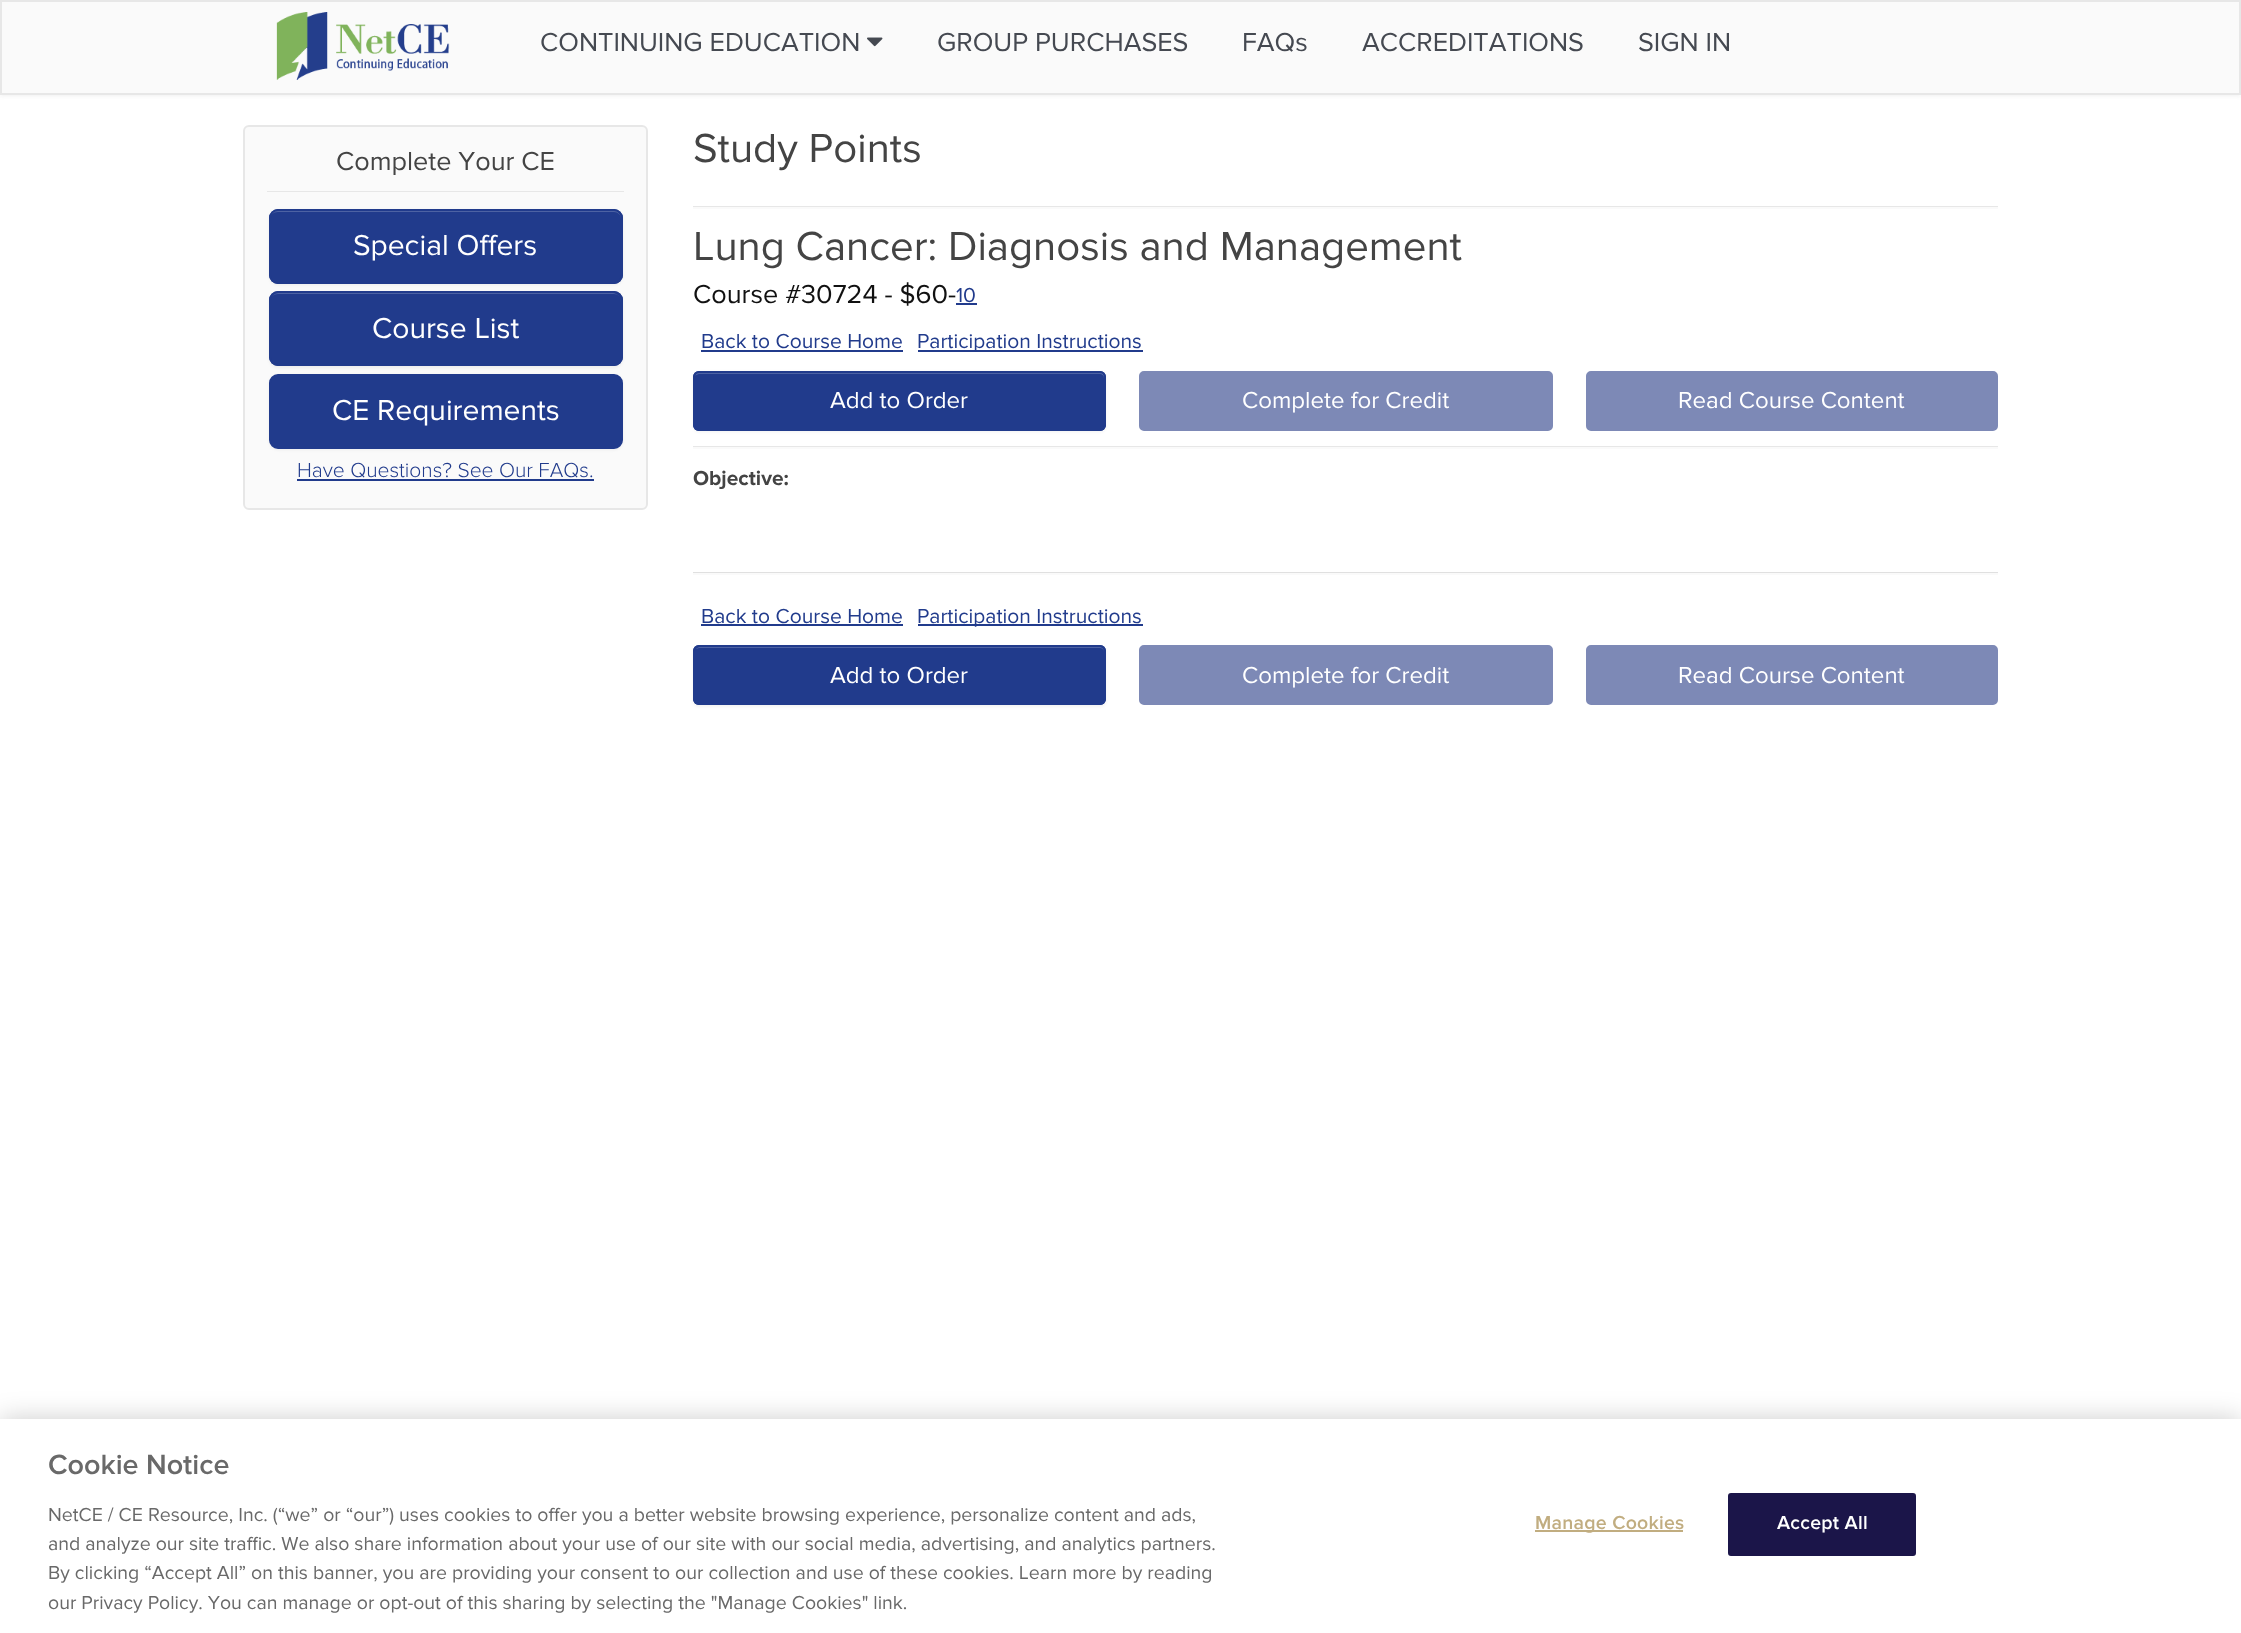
<svg xmlns="http://www.w3.org/2000/svg" width="2241" height="1633">
<rect width="100%" height="100%" fill="#fff"/>
<rect y="2" width="2241" height="94" fill="#7070701a" filter="blur(2px)"/>
<rect x="1" y="1" width="2239" height="93" fill="#fafafa" stroke="#e7e7e7" stroke-width="2"/>
<image x="276" y="12" width="174" height="68" href="media/1.png"/>
<text x="540" y="51" style="font-family:Proxima Nova;font-size:27px;fill:#454951">CONTINUING EDUCATION</text>
<image x="867" y="37" width="16" height="10" href="media/2.png"/>
<text x="937" y="51" style="font-family:Proxima Nova;font-size:27px;fill:#454951">GROUP PURCHASES</text>
<text x="1242" y="51" style="font-family:Proxima Nova;font-size:27px;fill:#454951">FAQs</text>
<text x="1362" y="51" style="font-family:Proxima Nova;font-size:27px;fill:#454951">ACCREDITATIONS</text>
<text x="1638" y="51" style="font-family:Proxima Nova;font-size:27px;fill:#454951">SIGN IN</text>
<rect x="244" y="126" width="403" height="383" rx="5" fill="#fafafa" stroke="#e7e7e7" stroke-width="2"/>
<text x="336" y="170" style="font-family:Proxima Nova;font-size:27px;fill:#444">Complete Your CE</text>
<rect x="267" y="191" width="357" height="1" fill="#e7e7e7"/>
<rect x="269" y="210" width="354" height="75" rx="9" fill="#0000000d" filter="blur(1.5px)"/>
<rect x="269" y="209" width="354" height="75" rx="9" fill="#213b8c"/>
<path d="M278 212h336c4 0 7 3 7 7v-1c0-4-4-8-8-8h-335c-4 0-8 4-8 8v1c0-4 3-7 8-7z" fill="#4d62a3"/>
<rect x="270" y="210" width="352" height="73" rx="8" fill="none" stroke="#213b8c" stroke-width="2"/>
<text x="353" y="255" style="font-family:Proxima Nova;font-size:30px;fill:#fff">Special Offers</text>
<rect x="269" y="293" width="354" height="75" rx="9" fill="#0000000d" filter="blur(1.5px)"/>
<rect x="269" y="291" width="354" height="75" rx="9" fill="#213b8c"/>
<path d="M278 294h336c4 0 7 3 7 8v-1c0-4-4-8-8-8h-335c-4 0-8 4-8 8v1c0-5 3-8 8-8z" fill="#4d62a3"/>
<rect x="270" y="292" width="352" height="73" rx="8" fill="none" stroke="#213b8c" stroke-width="2"/>
<text x="372" y="338" style="font-family:Proxima Nova;font-size:30px;fill:#fff">Course List</text>
<rect x="269" y="375" width="354" height="75" rx="9" fill="#0000000d" filter="blur(1.5px)"/>
<rect x="270" y="375" width="352" height="73" rx="8" fill="#213b8c" stroke="#213b8c" stroke-width="2"/>
<text x="332" y="420" style="font-family:Proxima Nova;font-size:30px;fill:#fff">CE Requirements</text>
<text x="297" y="477" style="font-family:Proxima Nova;font-size:21px;font-weight:300;fill:#213b8c">Have Questions? See Our FAQs.</text>
<rect x="297" y="479" width="297" height="2" fill="#213b8c"/>
<text x="693" y="162" style="font-family:Proxima Nova;font-size:42px;fill:#444">Study Points</text>
<rect x="693" y="206" width="1305" height="1" fill="#e7e7e7"/>
<rect x="693" y="207" width="1305" height="2" fill="#fafafa"/>
<text x="693" y="260" style="font-family:Proxima Nova;font-size:42px;fill:#444">Lung Cancer: Diagnosis and Management</text>
<text x="693" y="303" style="font-family:Proxima Nova;font-size:27px;fill:#111">Course #30724 - $60-</text>
<text x="956" y="302" style="font-family:Proxima Nova;font-size:21px;fill:#213b8c">10</text>
<rect x="956" y="303" width="21" height="2" fill="#213b8c"/>
<text x="701" y="348" style="font-family:Proxima Nova;font-size:21px;fill:#213b8c">Back to Course Home</text>
<rect x="701" y="350" width="202" height="2" fill="#213b8c"/>
<rect x="918" y="350" width="225" height="2" fill="#213b8c"/>
<text x="917" y="348" style="font-family:Proxima Nova;font-size:21px;fill:#213b8c">Participation Instructions</text>
<rect x="693" y="372" width="413" height="60" rx="6" fill="#0000000d" filter="blur(1.5px)"/>
<rect x="693" y="371" width="413" height="60" rx="6" fill="#213b8c"/>
<path d="M699 374h401c2 0 4 2 4 4v-1c0-3-2-5-5-5h-399c-2 0-4 2-5 4c1-1 3-2 4-2z" fill="#4d62a3"/>
<rect x="694" y="372" width="411" height="58" rx="5" fill="none" stroke="#213b8c" stroke-width="2"/>
<text x="830" y="408" style="font-family:Proxima Nova;font-size:24px;fill:#fff">Add to Order</text>
<rect x="1140" y="372" width="412" height="58" rx="4" fill="#7d89b6" stroke="#7d89b6" stroke-width="2"/>
<text x="1242" y="408" style="font-family:Proxima Nova;font-size:24px;fill:#fff">Complete for Credit</text>
<rect x="1587" y="372" width="410" height="58" rx="4" fill="#7d89b6" stroke="#7d89b6" stroke-width="2"/>
<text x="1678" y="408" style="font-family:Proxima Nova;font-size:24px;fill:#fff">Read Course Content</text>
<rect x="693" y="446" width="1305" height="1" fill="#e7e7e7"/>
<rect x="693" y="447" width="1305" height="2" fill="#fafafa"/>
<text x="693" y="485" style="font-family:Proxima Nova;font-size:21px;font-weight:bold;fill:#444">Objective:</text>
<rect x="693" y="572" width="1305" height="1" fill="#e0e0e0"/>
<rect x="693" y="573" width="1305" height="2" fill="#fafafa"/>
<text x="701" y="623" style="font-family:Proxima Nova;font-size:21px;fill:#213b8c">Back to Course Home</text>
<rect x="701" y="624" width="202" height="2" fill="#213b8c"/>
<rect x="918" y="624" width="225" height="2" fill="#213b8c"/>
<text x="917" y="623" style="font-family:Proxima Nova;font-size:21px;fill:#213b8c">Participation Instructions</text>
<rect x="693" y="647" width="413" height="60" rx="6" fill="#0000000d" filter="blur(1.5px)"/>
<rect x="693" y="645" width="413" height="60" rx="6" fill="#213b8c"/>
<path d="M699 648h401c2 0 4 2 4 4c0-3-2-5-5-5h-399c-2 0-3 1-4 2z" fill="#4d62a3"/>
<rect x="694" y="646" width="411" height="58" rx="5" fill="none" stroke="#213b8c" stroke-width="2"/>
<text x="830" y="683" style="font-family:Proxima Nova;font-size:24px;fill:#fff">Add to Order</text>
<rect x="1140" y="646" width="412" height="58" rx="4" fill="#7d89b6" stroke="#7d89b6" stroke-width="2"/>
<text x="1242" y="683" style="font-family:Proxima Nova;font-size:24px;fill:#fff">Complete for Credit</text>
<rect x="1587" y="646" width="410" height="58" rx="4" fill="#7d89b6" stroke="#7d89b6" stroke-width="2"/>
<text x="1678" y="683" style="font-family:Proxima Nova;font-size:24px;fill:#fff">Read Course Content</text>
<rect y="1419" width="2241" height="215" fill="#00000033" filter="blur(13.5px)"/>
<rect y="1419" width="2241" height="214" fill="#fff"/>
<text x="48" y="1474" style="font-family:Proxima Nova;font-size:28.75px;font-weight:600;fill:#696969">Cookie Notice</text>
<text x="48" y="1521" style="font-family:Proxima Nova;font-size:19.5px;fill:#696969">NetCE / CE Resource, Inc. (“we” or “our”) uses cookies to offer you a better website browsing experience, personalize content and ads,</text>
<text x="48" y="1550" style="font-family:Proxima Nova;font-size:19.5px;fill:#696969">and analyze our site traffic. We also share information about your use of our site with our social media, advertising, and analytics partners.</text>
<text x="48" y="1579" style="font-family:Proxima Nova;font-size:19.5px;fill:#696969">By clicking “Accept All” on this banner, you are providing your consent to our collection and use of these cookies. Learn more by reading</text>
<text x="48" y="1609" style="font-family:Proxima Nova;font-size:19.5px;fill:#696969">our Privacy Policy. You can manage or opt-out of this sharing by selecting the "Manage Cookies" link.</text>
<rect x="1535" y="1530" width="148" height="2" fill="#c1ad80"/>
<text x="1535" y="1529" style="font-family:Proxima Nova;font-size:19.5px;font-weight:600;letter-spacing:0.25px;fill:#c1ad80">Manage Cookies</text>
<rect x="1729" y="1494" width="186" height="61" rx="2" fill="#1b1549" stroke="#1b1549" stroke-width="2"/>
<text x="1777" y="1529" style="font-family:Proxima Nova;font-size:19.5px;font-weight:600;letter-spacing:0.25px;fill:#fff">Accept All</text>
</svg>
